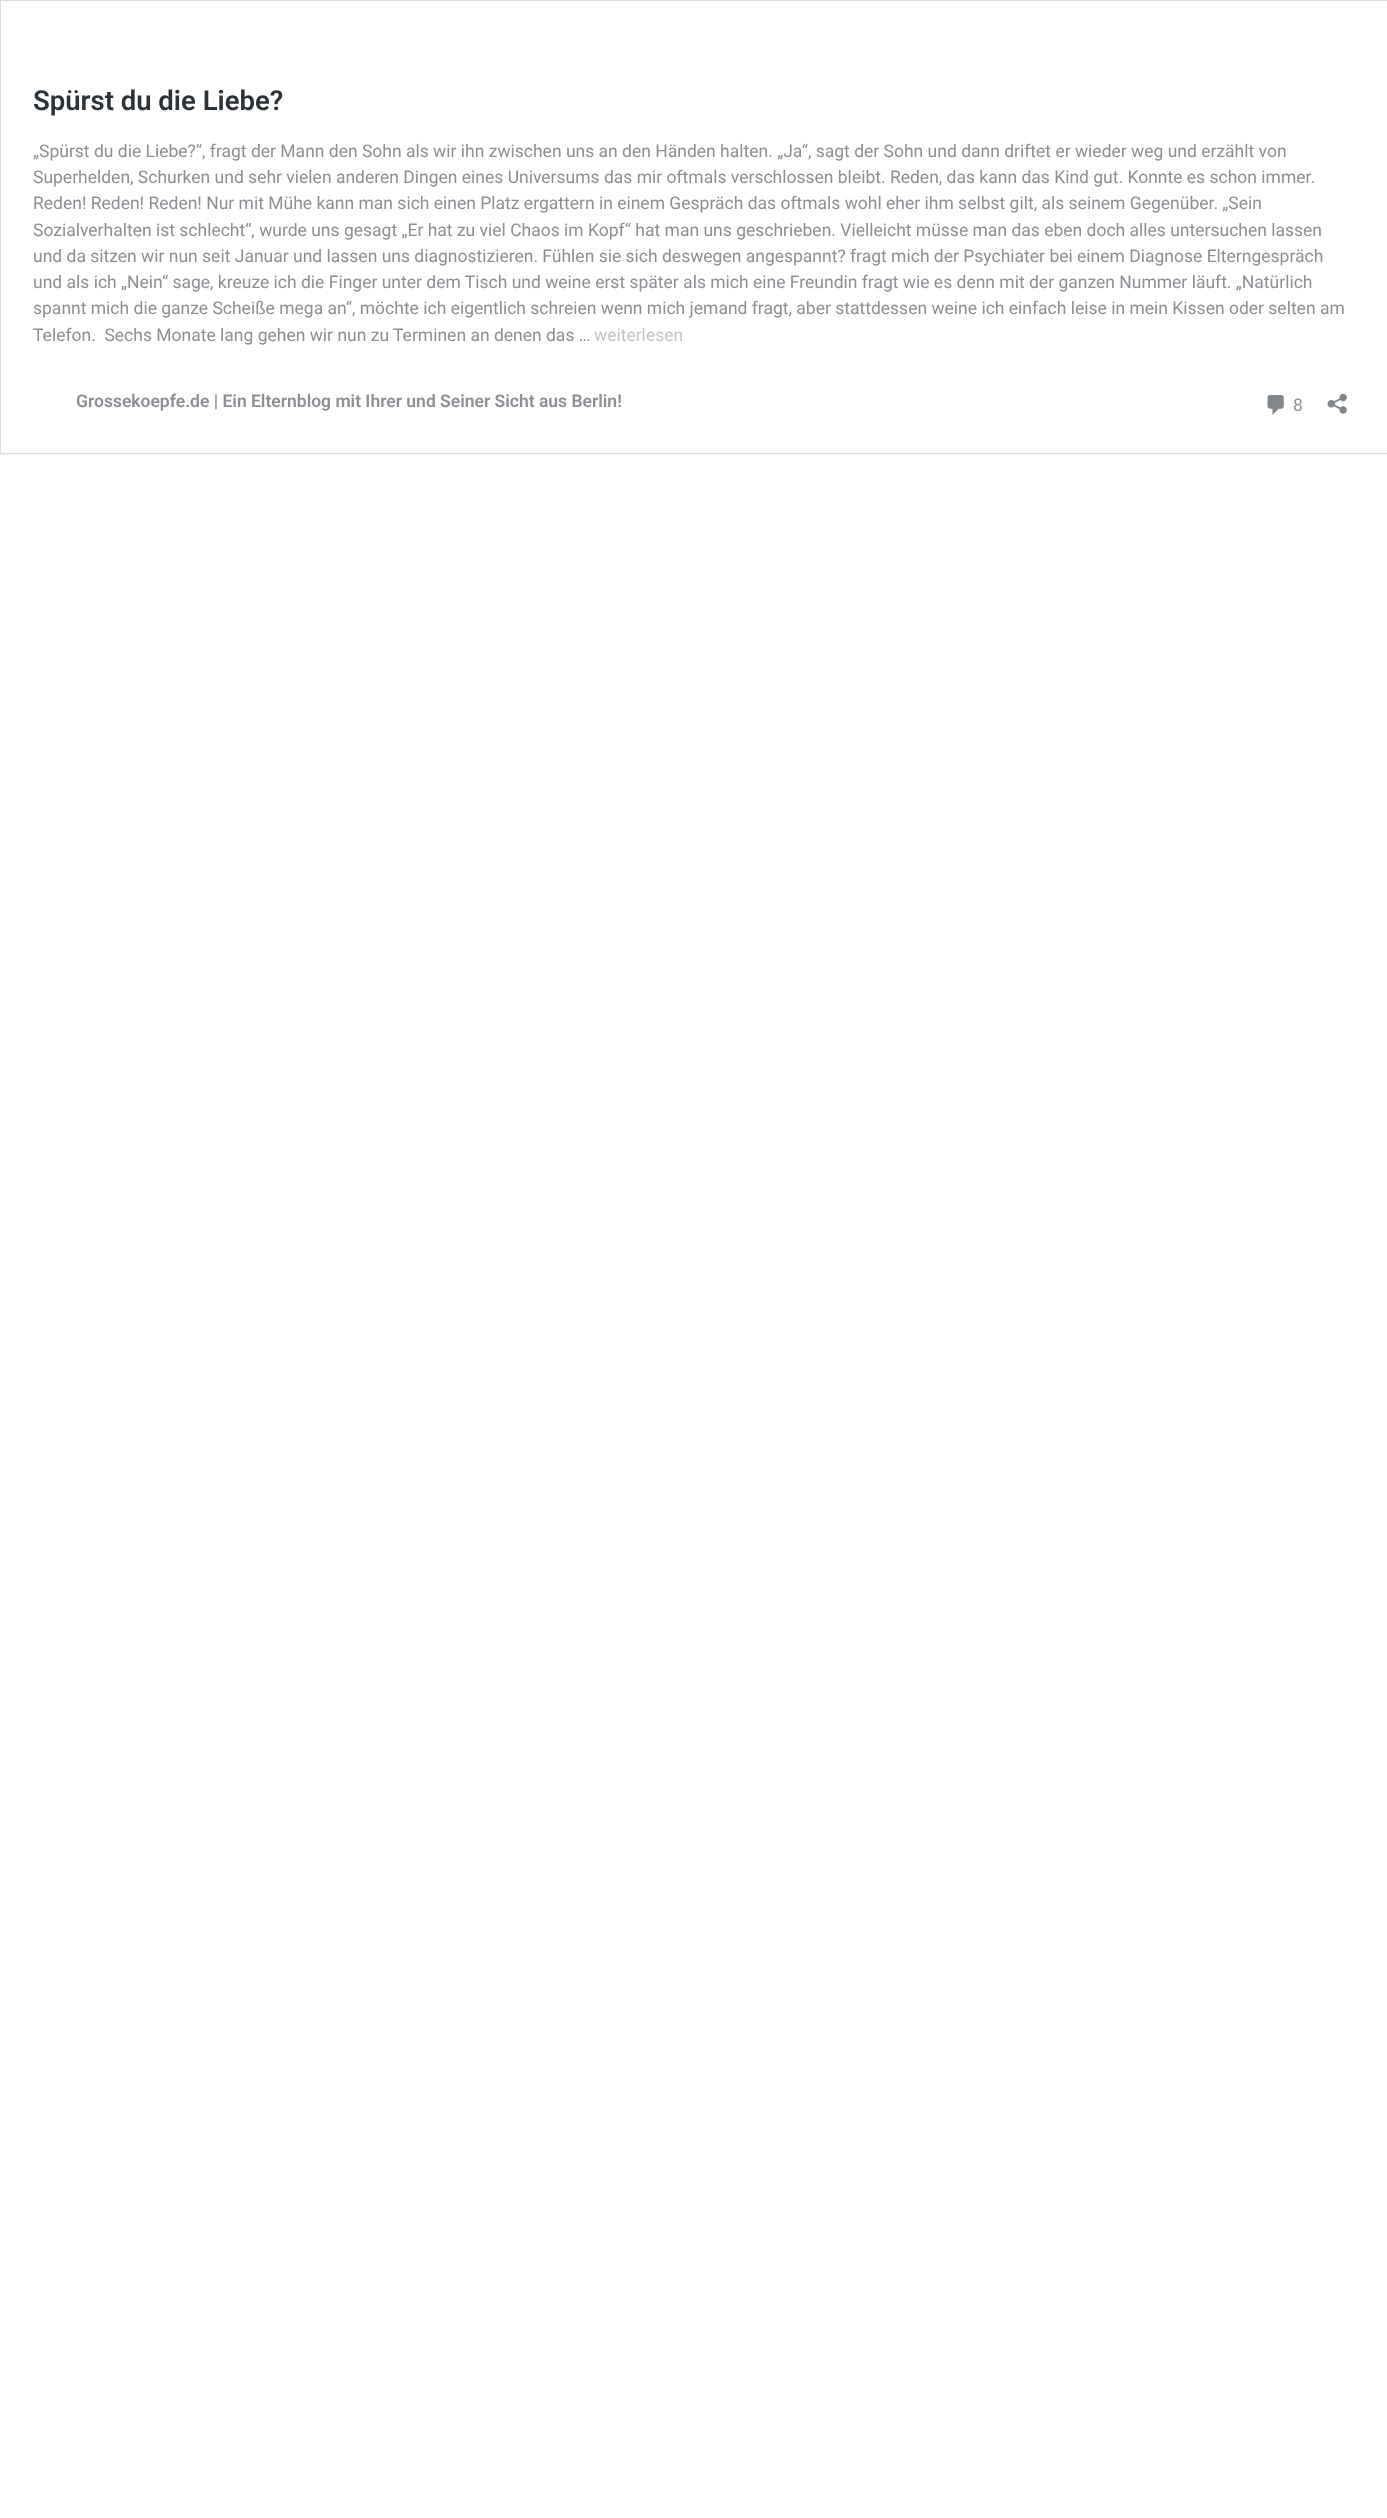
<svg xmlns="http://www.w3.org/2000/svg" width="1387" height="2518">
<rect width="100%" height="100%" fill="#fff"/>
<rect y="1" width="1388" height="454" fill="#0000000d" filter="blur(0.5px)"/>
<rect x="0.5" y="0.5" width="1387" height="453" fill="#fff" stroke="#dcdcde"/>
<text x="33" y="110" style="font-family:Roboto;font-size:27.5px;font-weight:600;fill:#2c3338">Spürst du die Liebe?</text>
<text x="33" y="157" style="font-family:Roboto;font-size:17.5px;fill:#8c8f94">„Spürst du die Liebe?“, fragt der Mann den Sohn als wir ihn zwischen uns an den Händen halten. „Ja“, sagt der Sohn und dann driftet er wieder weg und erzählt von</text>
<text x="33" y="183" style="font-family:Roboto;font-size:17.5px;fill:#8c8f94">Superhelden, Schurken und sehr vielen anderen Dingen eines Universums das mir oftmals verschlossen bleibt. Reden, das kann das Kind gut. Konnte es schon immer.</text>
<text x="33" y="209" style="font-family:Roboto;font-size:17.5px;fill:#8c8f94">Reden! Reden! Reden! Nur mit Mühe kann man sich einen Platz ergattern in einem Gespräch das oftmals wohl eher ihm selbst gilt, als seinem Gegenüber. „Sein</text>
<text x="33" y="236" style="font-family:Roboto;font-size:17.5px;fill:#8c8f94">Sozialverhalten ist schlecht“, wurde uns gesagt „Er hat zu viel Chaos im Kopf“ hat man uns geschrieben. Vielleicht müsse man das eben doch alles untersuchen lassen</text>
<text x="33" y="262" style="font-family:Roboto;font-size:17.5px;fill:#8c8f94">und da sitzen wir nun seit Januar und lassen uns diagnostizieren. Fühlen sie sich deswegen angespannt? fragt mich der Psychiater bei einem Diagnose Elterngespräch</text>
<text x="33" y="288" style="font-family:Roboto;font-size:17.5px;fill:#8c8f94">und als ich „Nein“ sage, kreuze ich die Finger unter dem Tisch und weine erst später als mich eine Freundin fragt wie es denn mit der ganzen Nummer läuft. „Natürlich</text>
<text x="33" y="314" style="font-family:Roboto;font-size:17.5px;fill:#8c8f94">spannt mich die ganze Scheiße mega an“, möchte ich eigentlich schreien wenn mich jemand fragt, aber stattdessen weine ich einfach leise in mein Kissen oder selten am</text>
<text x="33" y="341" style="font-family:Roboto;font-size:17.5px;fill:#8c8f94" xml:space="preserve">Telefon.  Sechs Monate lang gehen wir nun zu Terminen an denen das …</text>
<text x="594" y="341" style="font-family:Roboto;font-size:17.5px;fill:#c3c4c7">weiterlesen</text>
<text x="76" y="407" style="font-family:Roboto;font-size:17.5px;font-weight:600;fill:#8c8f94">Grossekoepfe.de | Ein Elternblog mit Ihrer und Seiner Sicht aus Berlin!</text>
<image x="1267" y="395" width="17" height="20" href="media/1.png"/>
<text x="1293" y="411" style="font-family:Roboto;font-size:17.5px;fill:#8c8f94">8</text>
<image x="1327" y="393" width="20" height="21" href="media/2.png"/>
</svg>
